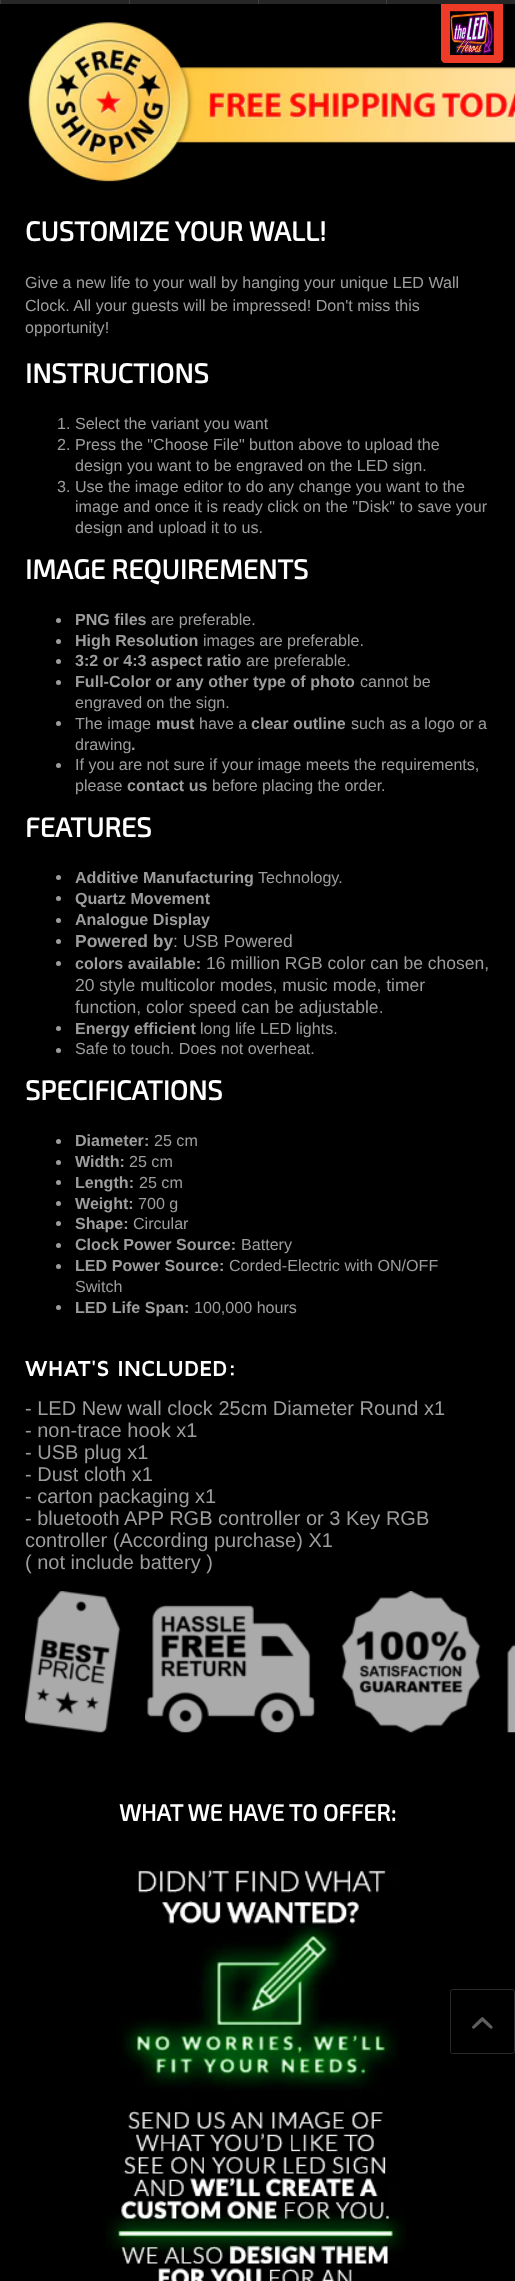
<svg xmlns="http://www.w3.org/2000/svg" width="515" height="2281">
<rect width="100%" height="100%" fill="#000"/>
<rect width="515" height="4" fill="#272727"/>
<rect width="1" height="4" fill="#3f3f3f"/>
<rect x="129" width="1" height="4" fill="#3f3f3f"/>
<rect x="258" width="1" height="4" fill="#3f3f3f"/>
<rect x="386" width="1" height="4" fill="#3f3f3f"/>
<image x="28" y="22" width="487" height="160" href="media/3.png"/>
<path d="M441 4h62v55c0 2-2 4-4 4h-54c-2 0-4-2-4-4z" fill="#ee3b27"/>
<image x="450" y="11" width="44" height="44" href="media/1.png"/>
<rect x="450.5" y="1989.5" width="64" height="64" rx="2" fill="none" stroke="#292929"/>
<image x="472" y="2017" width="21" height="12" href="media/2.png"/>
<text x="25" y="241" style="font-family:'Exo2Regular';font-size:27.25px;font-weight:bold;fill:#fff">CUSTOMIZE YOUR WALL!</text>
<text x="25" y="288" style="font-family:Liberation Sans;font-size:16.1px;fill:#9d9d9d">Give a new life to your wall by hanging your unique LED Wall</text>
<text x="25" y="311" style="font-family:Liberation Sans;font-size:16.1px;fill:#9d9d9d">Clock. All your guests will be impressed! Don't miss this</text>
<text x="25" y="333" style="font-family:Liberation Sans;font-size:16.1px;fill:#9d9d9d">opportunity!</text>
<text x="25" y="383" style="font-family:'Exo2Regular';font-size:27.25px;font-weight:bold;fill:#fff">INSTRUCTIONS</text>
<text x="57" y="429" style="font-family:Liberation Sans;font-size:16.1px;fill:#9d9d9d">1. Select the variant you want</text>
<text x="57" y="450" style="font-family:Liberation Sans;font-size:16.1px;fill:#9d9d9d">2. Press the "Choose File" button above to upload the</text>
<text x="75" y="471" style="font-family:Liberation Sans;font-size:16.1px;fill:#9d9d9d">design you want to be engraved on the LED sign.</text>
<text x="57" y="492" style="font-family:Liberation Sans;font-size:16.1px;fill:#9d9d9d">3. Use the image editor to do any change you want to the</text>
<text x="75" y="512" style="font-family:Liberation Sans;font-size:16.1px;fill:#9d9d9d">image and once it is ready click on the "Disk" to save your</text>
<text x="75" y="533" style="font-family:Liberation Sans;font-size:16.1px;fill:#9d9d9d">design and upload it to us.</text>
<text x="25" y="579" style="font-family:'Exo2Regular';font-size:27.25px;font-weight:bold;fill:#fff">IMAGE REQUIREMENTS</text>
<circle cx="58.5" cy="620.5" r="2.5" fill="#9d9d9d"/>
<text x="75" y="625" style="font-family:Liberation Sans;font-size:16.1px;font-weight:bold;fill:#9d9d9d">PNG files</text>
<text x="151" y="625" style="font-family:Liberation Sans;font-size:16.1px;fill:#9d9d9d">are preferable.</text>
<circle cx="58.5" cy="641.5" r="2.5" fill="#9d9d9d"/>
<text x="75" y="646" style="font-family:Liberation Sans;font-size:16.1px;font-weight:bold;fill:#9d9d9d">High Resolution</text>
<text x="203" y="646" style="font-family:Liberation Sans;font-size:16.1px;fill:#9d9d9d">images are preferable.</text>
<circle cx="58.5" cy="661.5" r="2.5" fill="#9d9d9d"/>
<text x="75" y="666" style="font-family:Liberation Sans;font-size:16.1px;font-weight:bold;fill:#9d9d9d">3:2 or 4:3 aspect ratio</text>
<text x="246" y="666" style="font-family:Liberation Sans;font-size:16.1px;fill:#9d9d9d">are preferable.</text>
<circle cx="58.5" cy="682.5" r="2.5" fill="#9d9d9d"/>
<text x="75" y="687" style="font-family:Liberation Sans;font-size:16.1px;font-weight:bold;fill:#9d9d9d">Full-Color or any other type of photo</text>
<text x="360" y="687" style="font-family:Liberation Sans;font-size:16.1px;fill:#9d9d9d">cannot be</text>
<text x="75" y="708" style="font-family:Liberation Sans;font-size:16.1px;fill:#9d9d9d">engraved on the sign.</text>
<circle cx="58.5" cy="723.5" r="2.5" fill="#9d9d9d"/>
<text x="75" y="729" style="font-family:Liberation Sans;font-size:16.1px;fill:#9d9d9d">The image</text>
<text x="156" y="729" style="font-family:Liberation Sans;font-size:16.1px;font-weight:bold;fill:#9d9d9d">must</text>
<text x="199" y="729" style="font-family:Liberation Sans;font-size:16.1px;fill:#9d9d9d">have a</text>
<text x="251" y="729" style="font-family:Liberation Sans;font-size:16.1px;font-weight:bold;fill:#9d9d9d">clear outline</text>
<text x="351" y="729" style="font-family:Liberation Sans;font-size:16.1px;fill:#9d9d9d">such as a logo or a</text>
<text x="75" y="750" style="font-family:Liberation Sans;font-size:16.1px;fill:#9d9d9d">drawing</text>
<text x="131" y="750" style="font-family:Liberation Sans;font-size:16.1px;font-weight:bold;fill:#9d9d9d">.</text>
<circle cx="58.5" cy="765.5" r="2.5" fill="#9d9d9d"/>
<text x="75" y="770" style="font-family:Liberation Sans;font-size:16.1px;fill:#9d9d9d">If you are not sure if your image meets the requirements,</text>
<text x="75" y="791" style="font-family:Liberation Sans;font-size:16.1px;fill:#9d9d9d">please</text>
<text x="127" y="791" style="font-family:Liberation Sans;font-size:16.1px;font-weight:bold;fill:#9d9d9d">contact us</text>
<text x="212" y="791" style="font-family:Liberation Sans;font-size:16.1px;fill:#9d9d9d">before placing the order.</text>
<text x="25" y="837" style="font-family:'Exo2Regular';font-size:27.25px;font-weight:bold;fill:#fff">FEATURES</text>
<circle cx="58.5" cy="877.5" r="2.5" fill="#9d9d9d"/>
<text x="75" y="883" style="font-family:Liberation Sans;font-size:16.1px;font-weight:bold;fill:#9d9d9d">Additive Manufacturing</text>
<text x="258" y="883" style="font-family:Liberation Sans;font-size:16.1px;fill:#9d9d9d">Technology.</text>
<circle cx="58.5" cy="898.5" r="2.5" fill="#9d9d9d"/>
<text x="75" y="904" style="font-family:Liberation Sans;font-size:16.1px;font-weight:bold;fill:#9d9d9d">Quartz Movement</text>
<circle cx="58.5" cy="920.5" r="2.5" fill="#9d9d9d"/>
<text x="75" y="925" style="font-family:Liberation Sans;font-size:16.1px;font-weight:bold;fill:#9d9d9d">Analogue Display</text>
<circle cx="58.5" cy="941.5" r="2.5" fill="#9d9d9d"/>
<text x="75" y="947" style="font-family:Liberation Sans;font-size:17.5px;font-weight:bold;fill:#9d9d9d">Powered by</text>
<text x="173" y="947" style="font-family:Liberation Sans;font-size:17.5px;fill:#9d9d9d">: USB Powered</text>
<circle cx="58.5" cy="963.5" r="2.5" fill="#9d9d9d"/>
<text x="75" y="969" style="font-family:Liberation Sans;font-size:16.1px;font-weight:bold;fill:#9d9d9d">colors available:</text>
<text x="206" y="969" style="font-family:Liberation Sans;font-size:17.5px;fill:#9d9d9d">16 million RGB color can be chosen,</text>
<text x="75" y="991" style="font-family:Liberation Sans;font-size:17.5px;fill:#9d9d9d">20 style multicolor modes, music mode, timer</text>
<text x="75" y="1013" style="font-family:Liberation Sans;font-size:17.5px;fill:#9d9d9d">function, color speed can be adjustable</text>
<text x="379" y="1013" style="font-family:Liberation Sans;font-size:16.1px;fill:#9d9d9d">.</text>
<circle cx="58.5" cy="1028.5" r="2.5" fill="#9d9d9d"/>
<text x="75" y="1034" style="font-family:Liberation Sans;font-size:16.1px;font-weight:bold;fill:#9d9d9d">Energy efficient</text>
<text x="200" y="1034" style="font-family:Liberation Sans;font-size:16.1px;fill:#9d9d9d">long life LED lights.</text>
<circle cx="58.5" cy="1050.5" r="2.5" fill="#9d9d9d"/>
<text x="75" y="1054" style="font-family:Liberation Sans;font-size:16.1px;fill:#9d9d9d">Safe to touch. Does not overheat.</text>
<text x="25" y="1100" style="font-family:'Exo2Regular';font-size:27.25px;font-weight:bold;fill:#fff">SPECIFICATIONS</text>
<circle cx="58.5" cy="1141.5" r="2.5" fill="#9d9d9d"/>
<text x="75" y="1146" style="font-family:Liberation Sans;font-size:16.1px;font-weight:bold;fill:#9d9d9d">Diameter:</text>
<text x="154" y="1146" style="font-family:Liberation Sans;font-size:16.1px;fill:#9d9d9d">25 cm</text>
<circle cx="58.5" cy="1162.5" r="2.5" fill="#9d9d9d"/>
<text x="75" y="1167" style="font-family:Liberation Sans;font-size:16.1px;font-weight:bold;fill:#9d9d9d">Width:</text>
<text x="129" y="1167" style="font-family:Liberation Sans;font-size:16.1px;fill:#9d9d9d">25 cm</text>
<circle cx="58.5" cy="1182.5" r="2.5" fill="#9d9d9d"/>
<text x="75" y="1188" style="font-family:Liberation Sans;font-size:16.1px;font-weight:bold;fill:#9d9d9d">Length:</text>
<text x="139" y="1188" style="font-family:Liberation Sans;font-size:16.1px;fill:#9d9d9d">25 cm</text>
<circle cx="58.5" cy="1203.5" r="2.5" fill="#9d9d9d"/>
<text x="75" y="1209" style="font-family:Liberation Sans;font-size:16.1px;font-weight:bold;fill:#9d9d9d">Weight:</text>
<text x="138" y="1209" style="font-family:Liberation Sans;font-size:16.1px;fill:#9d9d9d">700 g</text>
<circle cx="58.5" cy="1223.5" r="2.5" fill="#9d9d9d"/>
<text x="75" y="1229" style="font-family:Liberation Sans;font-size:16.1px;font-weight:bold;fill:#9d9d9d">Shape:</text>
<text x="133" y="1229" style="font-family:Liberation Sans;font-size:16.1px;fill:#9d9d9d">Circular</text>
<circle cx="58.5" cy="1245.5" r="2.5" fill="#9d9d9d"/>
<text x="75" y="1250" style="font-family:Liberation Sans;font-size:16.1px;font-weight:bold;fill:#9d9d9d">Clock Power Source:</text>
<text x="241" y="1250" style="font-family:Liberation Sans;font-size:16.1px;fill:#9d9d9d">Battery</text>
<circle cx="58.5" cy="1266.5" r="2.5" fill="#9d9d9d"/>
<text x="75" y="1271" style="font-family:Liberation Sans;font-size:16.1px;font-weight:bold;fill:#9d9d9d">LED Power Source:</text>
<text x="229" y="1271" style="font-family:Liberation Sans;font-size:16.1px;fill:#9d9d9d">Corded-Electric with ON/OFF</text>
<text x="75" y="1292" style="font-family:Liberation Sans;font-size:16.1px;fill:#9d9d9d">Switch</text>
<circle cx="58.5" cy="1307.5" r="2.5" fill="#9d9d9d"/>
<text x="75" y="1313" style="font-family:Liberation Sans;font-size:16.1px;font-weight:bold;fill:#9d9d9d">LED Life Span:</text>
<text x="194" y="1313" style="font-family:Liberation Sans;font-size:16.1px;fill:#9d9d9d">100,000 hours</text>
<text x="25" y="1376" style="font-family:Maven Pro;font-size:22.5px;font-weight:bold;fill:#fff">WHAT'S INCLUDED:</text>
<text x="25" y="1415" style="font-family:Liberation Sans;font-size:20px;fill:#9d9d9d">- LED New wall clock 25cm Diameter Round x1</text>
<text x="25" y="1437" style="font-family:Liberation Sans;font-size:20px;fill:#9d9d9d">- non-trace hook x1</text>
<text x="25" y="1459" style="font-family:Liberation Sans;font-size:20px;fill:#9d9d9d">- USB plug x1</text>
<text x="25" y="1481" style="font-family:Liberation Sans;font-size:20px;fill:#9d9d9d">- Dust cloth x1</text>
<text x="25" y="1503" style="font-family:Liberation Sans;font-size:20px;fill:#9d9d9d">- carton packaging x1</text>
<text x="25" y="1525" style="font-family:Liberation Sans;font-size:20px;fill:#9d9d9d">- bluetooth APP RGB controller or 3 Key RGB</text>
<text x="25" y="1547" style="font-family:Liberation Sans;font-size:20px;fill:#9d9d9d">controller (According purchase) X1</text>
<text x="25" y="1569" style="font-family:Liberation Sans;font-size:20px;fill:#9d9d9d">( not include battery )</text>
<image x="25" y="1591" width="490" height="142" href="media/4.png"/>
<text x="119" y="1821" style="font-family:'Exo2Regular';font-size:23.25px;font-weight:bold;fill:#fff">WHAT WE HAVE TO OFFER:</text>
<image x="105" y="1869" width="301" height="412" href="media/5.png"/>
</svg>
